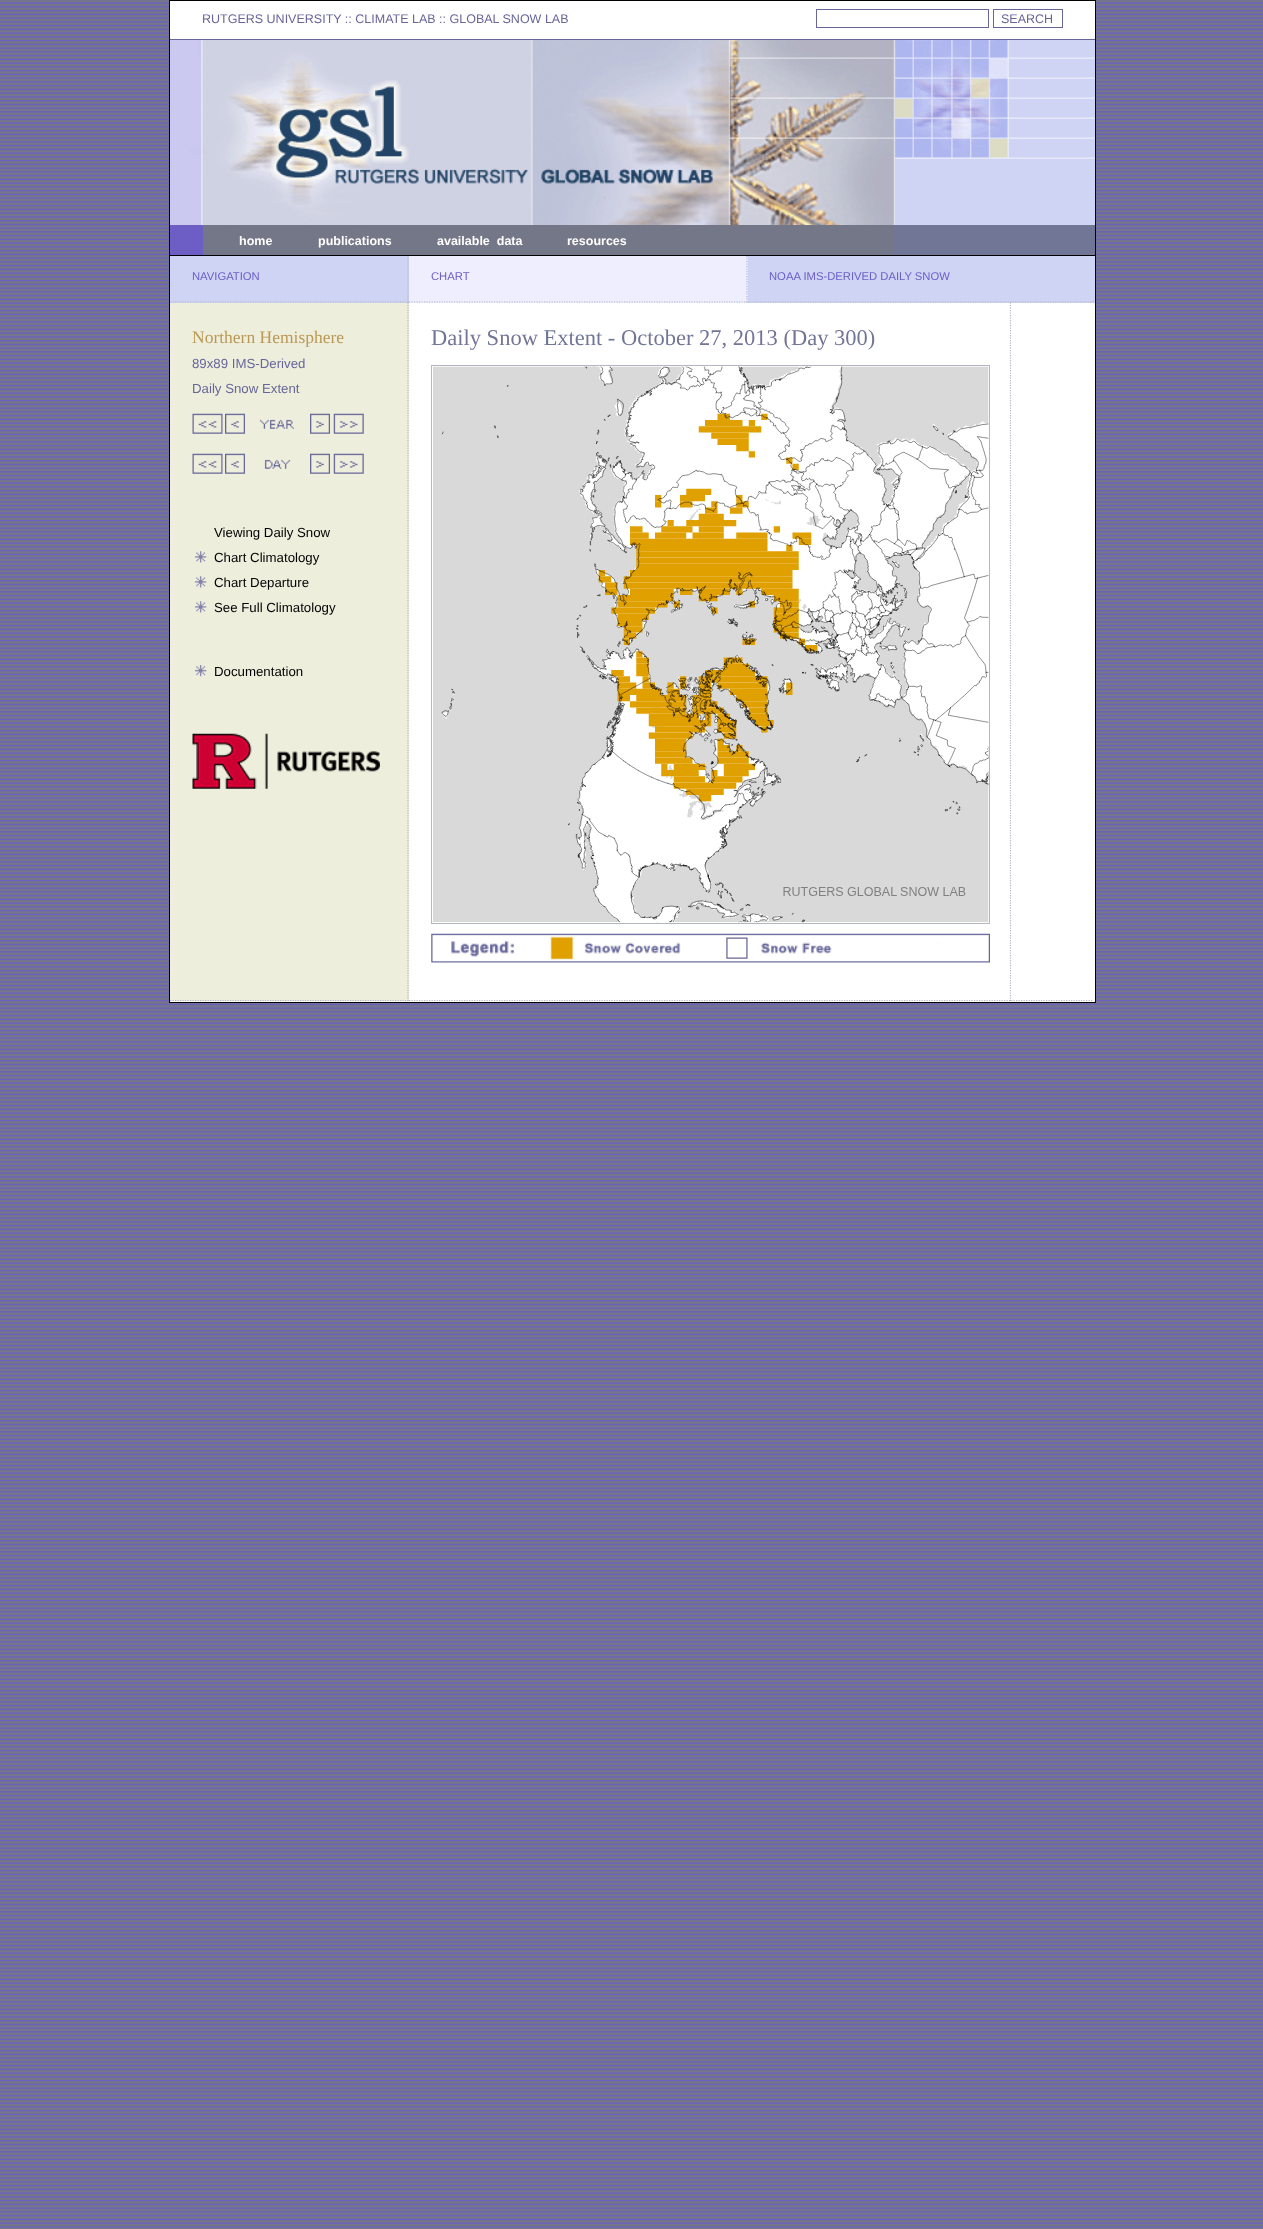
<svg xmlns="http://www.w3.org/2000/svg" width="1263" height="2229">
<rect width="100%" height="100%" fill="#fff"/>
<image x="0" y="0" width="1263" height="2229" href="media/1.png"/>
<rect x="169.5" y="0.5" width="926" height="1002" fill="#fff" stroke="#000"/>
<rect x="170" y="39" width="925" height="1" fill="#669"/>
<text x="202" y="23" style="font-family:Liberation Sans;font-size:12.5px;fill:#669">RUTGERS UNIVERSITY :: CLIMATE LAB :: GLOBAL SNOW LAB</text>
<rect x="816.5" y="9.5" width="172" height="18" fill="none" stroke="#669"/>
<rect x="993.5" y="9.5" width="69" height="18" fill="none" stroke="#669"/>
<text x="1001" y="23" style="font-family:Liberation Sans;font-size:12.5px;fill:#669">SEARCH</text>
<image x="170" y="40" width="925" height="185" href="media/2.png"/>
<rect x="170" y="225" width="33" height="30" fill="#6c5ec5"/>
<rect x="170" y="255" width="925" height="1" fill="#000"/>
<rect x="203" y="225" width="691" height="30" fill="#747787"/>
<text x="239" y="245" style="font-family:Liberation Sans;font-size:12.5px;font-weight:bold;fill:#fff">home</text>
<text x="318" y="245" style="font-family:Liberation Sans;font-size:12.5px;font-weight:bold;fill:#fff">publications</text>
<text x="437" y="245" style="font-family:Liberation Sans;font-size:12.5px;font-weight:bold;fill:#fff" xml:space="preserve">available  data</text>
<text x="567" y="245" style="font-family:Liberation Sans;font-size:12.5px;font-weight:bold;fill:#fff">resources</text>
<rect x="894" y="225" width="201" height="30" fill="#717697"/>
<rect x="170" y="256" width="239" height="47" fill="#cfd4f5"/>
<path d="M408 256v46.5" fill="none" stroke="#b3b6c5" stroke-width="1.2" stroke-dasharray="1.25 1.25"/>
<path d="M170 302h239" fill="none" stroke="#b3b6c5" stroke-width="1.2" stroke-dasharray="1.25 1.25"/>
<text x="192" y="280" style="font-family:Liberation Sans;font-size:11.25px;fill:#6c5ec5">NAVIGATION</text>
<rect x="409" y="256" width="339" height="47" fill="#eef"/>
<path d="M747 256v46.5" fill="none" stroke="#b3b6c5" stroke-width="1.2" stroke-dasharray="1.25 1.25"/>
<path d="M409 302h338.5" fill="none" stroke="#b3b6c5" stroke-width="1.2" stroke-dasharray="1.25 1.25"/>
<text x="431" y="280" style="font-family:Liberation Sans;font-size:11.25px;fill:#6c5ec5">CHART</text>
<rect x="748" y="256" width="347" height="47" fill="#cfd4f5"/>
<path d="M747.5 302h347.5" fill="none" stroke="#b3b6c5" stroke-width="1.2" stroke-dasharray="1.25 1.25"/>
<text x="769" y="280" style="font-family:Liberation Sans;font-size:11.25px;fill:#6c5ec5">NOAA IMS-DERIVED DAILY SNOW</text>
<rect x="170" y="303" width="239" height="698" fill="#eed"/>
<path d="M408 302.5v698.5" fill="none" stroke="#b3b6c5" stroke-width="1.2" stroke-dasharray="1.25 1.25"/>
<path d="M170 1000.5h239" fill="none" stroke="#b3b6c5" stroke-width="1.2" stroke-dasharray="1.25 1.25"/>
<text x="192" y="343" style="font-family:Liberation Serif;font-size:17.5px;fill:#b95">Northern Hemisphere</text>
<text x="192" y="368" style="font-family:Liberation Sans;font-size:13.25px;fill:#669">89x89 IMS-Derived</text>
<text x="192" y="393" style="font-family:Liberation Sans;font-size:13.25px;fill:#669">Daily Snow Extent</text>
<image x="192" y="413" width="31" height="21" href="media/3.png"/>
<image x="225" y="413" width="20" height="21" href="media/4.png"/>
<image x="259" y="419" width="35" height="10" href="media/5.png"/>
<image x="310" y="413" width="20" height="21" href="media/6.png"/>
<image x="333" y="413" width="31" height="21" href="media/7.png"/>
<image x="192" y="453" width="31" height="21" href="media/3.png"/>
<image x="225" y="453" width="20" height="21" href="media/4.png"/>
<image x="264" y="459" width="27" height="10" href="media/8.png"/>
<image x="310" y="453" width="20" height="21" href="media/6.png"/>
<image x="333" y="453" width="31" height="21" href="media/7.png"/>
<text x="214" y="537" style="font-family:Liberation Sans;font-size:13.25px;fill:#000">Viewing Daily Snow</text>
<image x="195" y="551" width="12" height="12" href="media/9.png"/>
<text x="214" y="562" style="font-family:Liberation Sans;font-size:13.25px;fill:#000">Chart Climatology</text>
<image x="195" y="576" width="12" height="12" href="media/9.png"/>
<text x="214" y="587" style="font-family:Liberation Sans;font-size:13.25px;fill:#000">Chart Departure</text>
<image x="195" y="601" width="12" height="12" href="media/9.png"/>
<text x="214" y="612" style="font-family:Liberation Sans;font-size:13.25px;fill:#000">See Full Climatology</text>
<image x="195" y="665" width="12" height="12" href="media/10.png"/>
<text x="214" y="676" style="font-family:Liberation Sans;font-size:13.25px;fill:#000">Documentation</text>
<image x="192" y="733" width="188" height="56" href="media/11.png"/>
<path d="M1010.5 302.5v698.5" fill="none" stroke="#b3b6c5" stroke-width="1.2" stroke-dasharray="1.25 1.25"/>
<path d="M409 1000.5h602" fill="none" stroke="#b3b6c5" stroke-width="1.2" stroke-dasharray="1.25 1.25"/>
<text x="431" y="345" style="font-family:Liberation Serif;font-size:22.5px;fill:#717697">Daily Snow Extent - October 27, 2013 (Day 300)</text>
<rect x="431.5" y="365.5" width="558" height="558" fill="none" stroke="#b3b6c5"/>
<image x="433" y="366" width="556" height="557" href="media/12.png"/>
<image x="431" y="933" width="559" height="30" href="media/13.png"/>
<rect x="1011" y="303" width="1" height="698" fill="#fff"/>
<path d="M1011 1000.5h81.5" fill="none" stroke="#b3b6c5" stroke-width="1.2" stroke-dasharray="1.25 1.25"/>
</svg>
